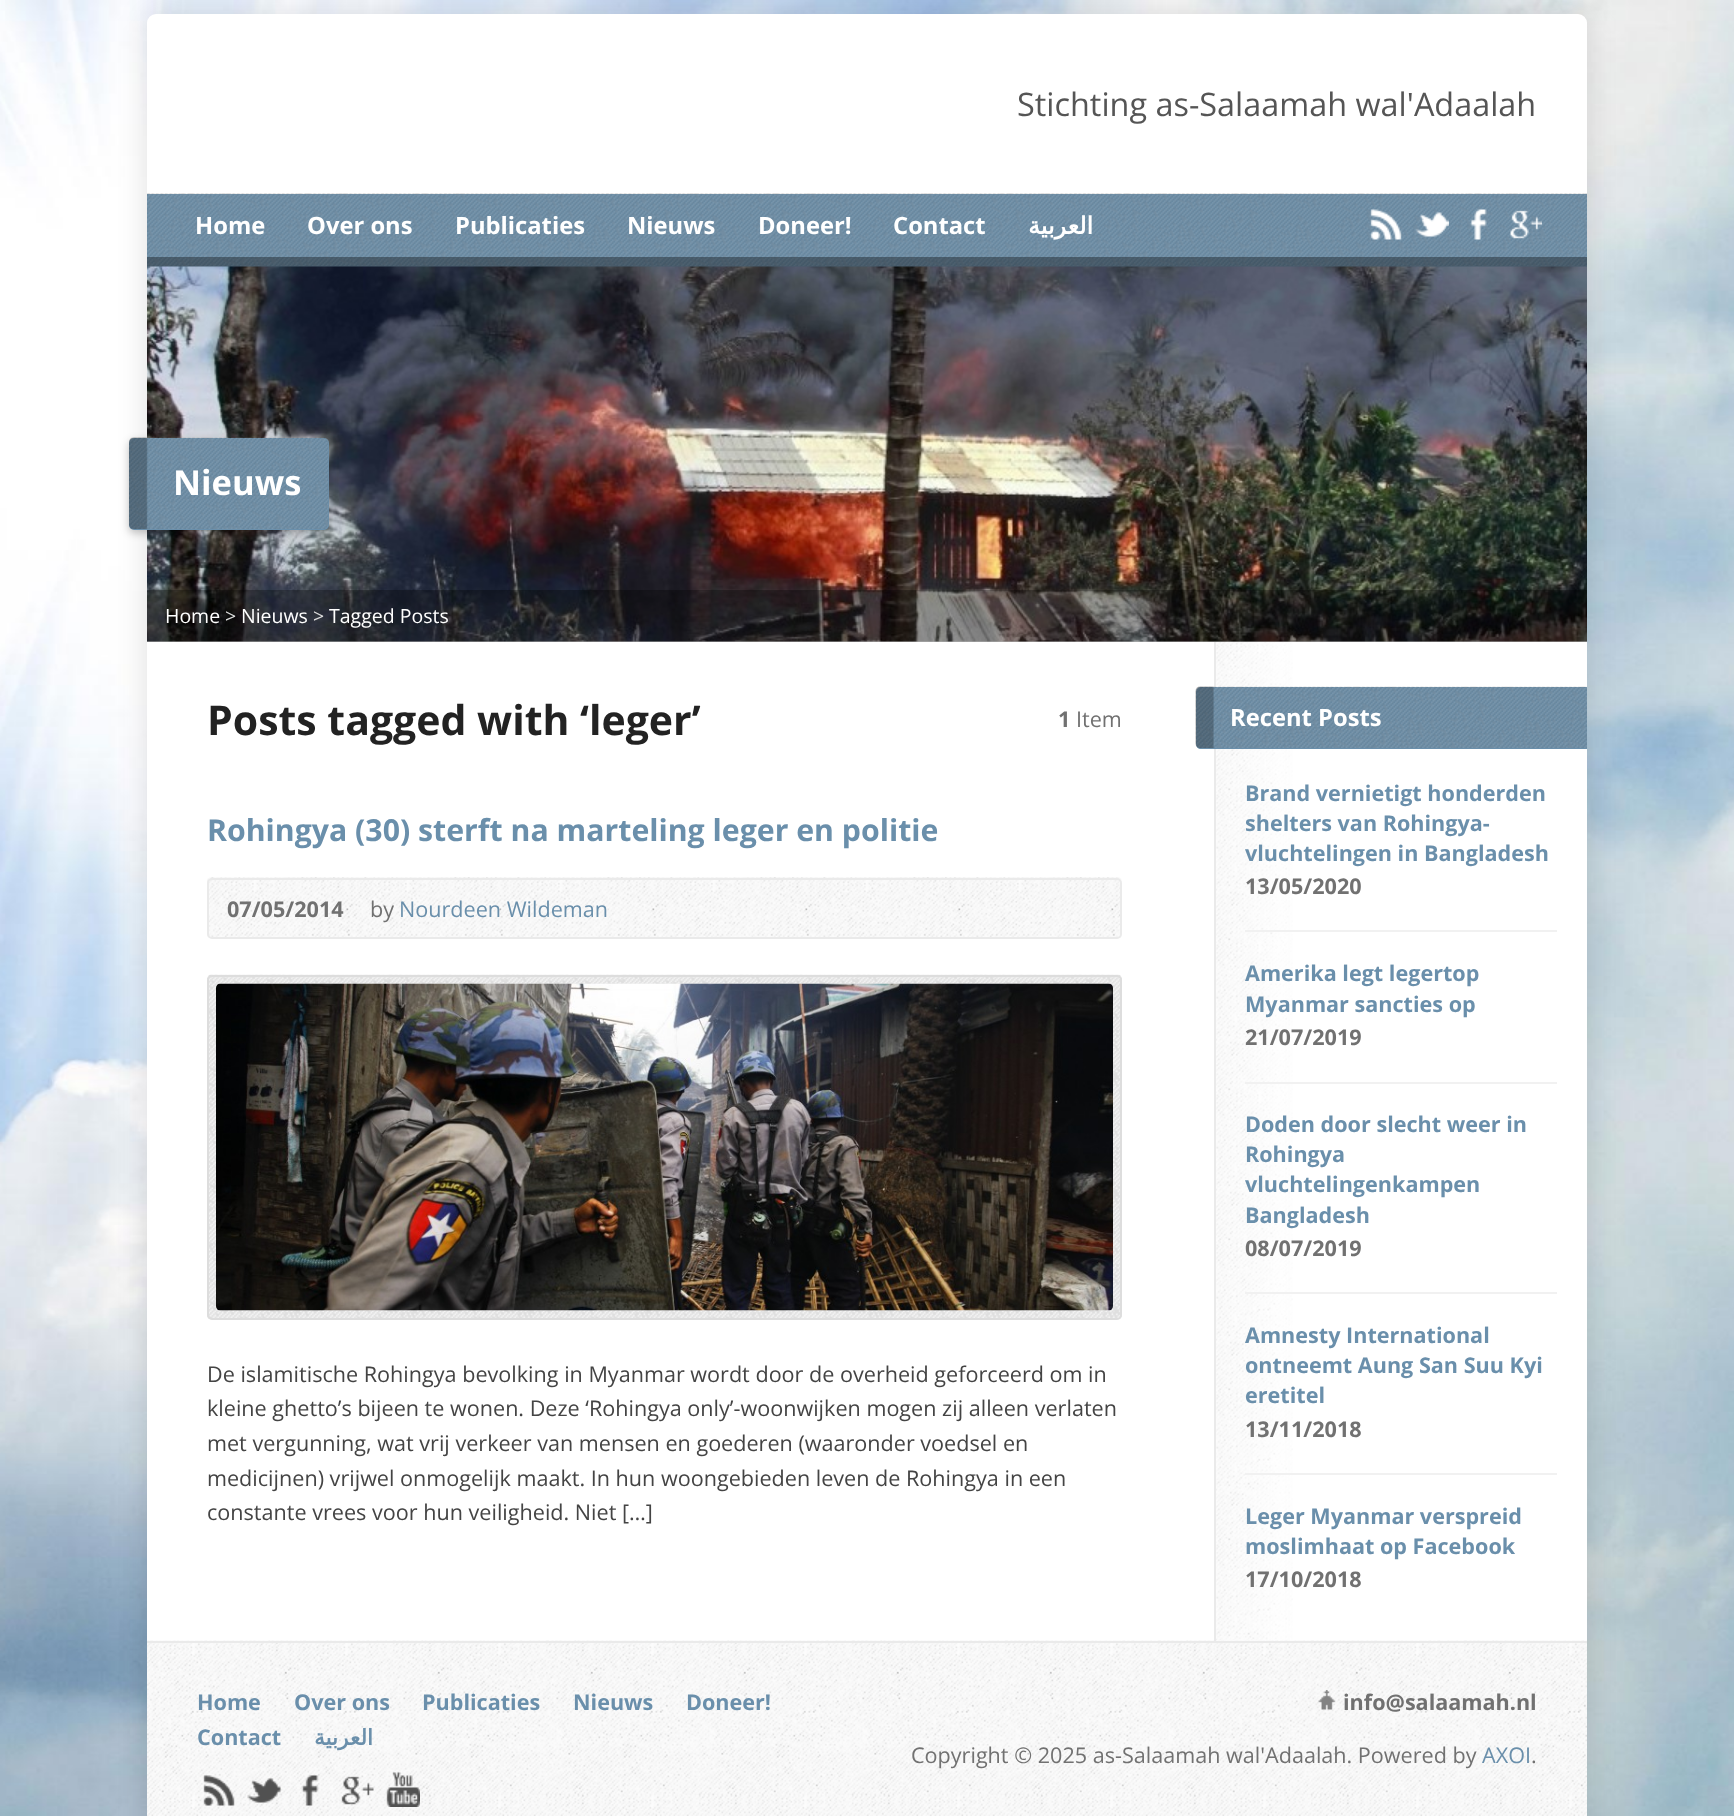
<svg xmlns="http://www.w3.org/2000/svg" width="1734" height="1816">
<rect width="100%" height="100%" fill="#fff"/>
<image x="0" y="0" width="1734" height="1816" href="media/1.png"/>
<rect x="147" y="14" width="1440" height="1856" rx="9" fill="#0000001f" filter="blur(15px)"/>
<rect x="147" y="14" width="1440" height="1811" rx="9" fill="#fff"/>
<text x="1017" y="116" style="font-family:Open Sans;font-size:32.4px;fill:#555">Stichting as-Salaamah wal'Adaalah</text>
<rect x="147" y="194" width="1440" height="73" fill="#6a8fab"/>
<image x="147" y="193" width="1440" height="74" href="media/2.png"/>
<text x="195" y="234" style="font-family:Open Sans;font-size:23.75px;font-weight:bold;fill:#fff">Home</text>
<text x="307" y="234" style="font-family:Open Sans;font-size:23.75px;font-weight:bold;fill:#fff">Over ons</text>
<text x="455" y="234" style="font-family:Open Sans;font-size:23.75px;font-weight:bold;fill:#fff">Publicaties</text>
<text x="627" y="234" style="font-family:Open Sans;font-size:23.75px;font-weight:bold;fill:#fff">Nieuws</text>
<text x="758" y="234" style="font-family:Open Sans;font-size:23.75px;font-weight:bold;fill:#fff">Doneer!</text>
<text x="893" y="234" style="font-family:Open Sans;font-size:23.75px;font-weight:bold;fill:#fff">Contact</text>
<text x="1093" y="234" style="font-family:DejaVu Sans;font-size:23.75px;font-weight:bold;direction:rtl;fill:#fff">العربية</text>
<image x="1370" y="209" width="32" height="31" href="media/3.png"/>
<image x="1415" y="212" width="34" height="25" href="media/4.png"/>
<image x="1470" y="209" width="17" height="31" href="media/5.png"/>
<image x="1510" y="210" width="32" height="29" href="media/6.png"/>
<rect x="147" y="257" width="1440" height="10" fill="#00000059"/>
<image x="147" y="1640" width="1440" height="176" href="media/14.png"/>
<image x="1215" y="641" width="78" height="1000" href="media/12.png"/>
<image x="147" y="266" width="1440" height="376" href="media/7.png"/>
<rect x="129" y="441" width="200" height="92" rx="5" fill="#0000003d" filter="blur(4px)"/>
<rect x="129" y="438" width="200" height="92" rx="5" fill="#6a8fab"/>
<image x="129" y="437" width="200" height="92" href="media/8.png"/>
<text x="173" y="495" style="font-family:Open Sans;font-size:34.5px;font-weight:bold;fill:#fff">Nieuws</text>
<rect x="147" y="590" width="1440" height="52" fill="#0000004d"/>
<text x="165" y="623" style="font-family:Open Sans;font-size:19.5px;fill:#fff">Home</text>
<text x="225" y="623" style="font-family:Open Sans;font-size:19.5px;fill:#ddd">&gt;</text>
<text x="241" y="623" style="font-family:Open Sans;font-size:19.5px;fill:#fff">Nieuws</text>
<text x="313" y="623" style="font-family:Open Sans;font-size:19.5px;fill:#ddd">&gt;</text>
<text x="329" y="623" style="font-family:Open Sans;font-size:19.5px;fill:#fff">Tagged Posts</text>
<text x="207" y="735" style="font-family:Open Sans;font-size:41px;font-weight:bold;fill:#222">Posts tagged with ‘leger’</text>
<text x="1058" y="727" style="font-family:Open Sans;font-size:21.6px;font-weight:bold;fill:#717171">1</text>
<text x="1076" y="727" style="font-family:Open Sans;font-size:21.6px;fill:#717171">Item</text>
<text x="207" y="841" style="font-family:Open Sans;font-size:30.25px;font-weight:bold;fill:#6a8fab">Rohingya (30) sterft na marteling leger en politie</text>
<image x="207" y="877" width="915" height="62" href="media/9.png"/>
<rect x="208" y="879" width="913" height="59" rx="4" fill="none" stroke="#eaeaea" stroke-width="2"/>
<text x="227" y="917" style="font-family:Open Sans;font-size:21.6px;font-weight:bold;fill:#717171">07/05/2014</text>
<text x="370" y="917" style="font-family:Open Sans;font-size:21.6px;fill:#717171">by</text>
<text x="399" y="917" style="font-family:Open Sans;font-size:21.6px;fill:#6a8fab">Nourdeen Wildeman</text>
<image x="207" y="974" width="915" height="346" href="media/10.png"/>
<rect x="208" y="976" width="913" height="343" rx="4" fill="none" stroke="#ddd" stroke-width="2"/>
<image x="216" y="983" width="897" height="328" href="media/11.png"/>
<text x="207" y="1382" style="font-family:Open Sans;font-size:21.6px;fill:#444">De islamitische Rohingya bevolking in Myanmar wordt door de overheid geforceerd om in</text>
<text x="207" y="1416" style="font-family:Open Sans;font-size:21.6px;fill:#444">kleine ghetto’s bijeen te wonen. Deze ‘Rohingya only’-woonwijken mogen zij alleen verlaten</text>
<text x="207" y="1451" style="font-family:Open Sans;font-size:21.6px;fill:#444">met vergunning, wat vrij verkeer van mensen en goederen (waaronder voedsel en</text>
<text x="207" y="1486" style="font-family:Open Sans;font-size:21.6px;fill:#444">medicijnen) vrijwel onmogelijk maakt. In hun woongebieden leven de Rohingya in een</text>
<text x="207" y="1520" style="font-family:Open Sans;font-size:21.6px;fill:#444">constante vrees voor hun veiligheid. Niet […]</text>
<rect x="1214" y="642" width="2" height="999" fill="#eaeaea"/>
<path d="M1201 687h386v62h-386c-3 0-5-2-5-5v-52c0-3 2-5 5-5z" fill="#6a8fab"/>
<image x="1195" y="686" width="392" height="62" href="media/13.png"/>
<text x="1230" y="726" style="font-family:Open Sans;font-size:23.75px;font-weight:bold;fill:#fff">Recent Posts</text>
<text x="1245" y="801" style="font-family:Open Sans;font-size:21.6px;font-weight:bold;fill:#6a8fab">Brand vernietigt honderden</text>
<text x="1245" y="831" style="font-family:Open Sans;font-size:21.6px;font-weight:bold;fill:#6a8fab">shelters van Rohingya-</text>
<text x="1245" y="861" style="font-family:Open Sans;font-size:21.6px;font-weight:bold;fill:#6a8fab">vluchtelingen in Bangladesh</text>
<text x="1245" y="894" style="font-family:Open Sans;font-size:21.6px;font-weight:bold;fill:#717171">13/05/2020</text>
<rect x="1245" y="930" width="312" height="2" fill="#f1f1f1"/>
<text x="1245" y="981" style="font-family:Open Sans;font-size:21.6px;font-weight:bold;fill:#6a8fab">Amerika legt legertop</text>
<text x="1245" y="1012" style="font-family:Open Sans;font-size:21.6px;font-weight:bold;fill:#6a8fab">Myanmar sancties op</text>
<text x="1245" y="1045" style="font-family:Open Sans;font-size:21.6px;font-weight:bold;fill:#717171">21/07/2019</text>
<rect x="1245" y="1082" width="312" height="2" fill="#f1f1f1"/>
<text x="1245" y="1132" style="font-family:Open Sans;font-size:21.6px;font-weight:bold;fill:#6a8fab">Doden door slecht weer in</text>
<text x="1245" y="1162" style="font-family:Open Sans;font-size:21.6px;font-weight:bold;fill:#6a8fab">Rohingya</text>
<text x="1245" y="1192" style="font-family:Open Sans;font-size:21.6px;font-weight:bold;fill:#6a8fab">vluchtelingenkampen</text>
<text x="1245" y="1223" style="font-family:Open Sans;font-size:21.6px;font-weight:bold;fill:#6a8fab">Bangladesh</text>
<text x="1245" y="1256" style="font-family:Open Sans;font-size:21.6px;font-weight:bold;fill:#717171">08/07/2019</text>
<rect x="1245" y="1292" width="312" height="2" fill="#f1f1f1"/>
<text x="1245" y="1343" style="font-family:Open Sans;font-size:21.6px;font-weight:bold;fill:#6a8fab">Amnesty International</text>
<text x="1245" y="1373" style="font-family:Open Sans;font-size:21.6px;font-weight:bold;fill:#6a8fab">ontneemt Aung San Suu Kyi</text>
<text x="1245" y="1403" style="font-family:Open Sans;font-size:21.6px;font-weight:bold;fill:#6a8fab">eretitel</text>
<text x="1245" y="1437" style="font-family:Open Sans;font-size:21.6px;font-weight:bold;fill:#717171">13/11/2018</text>
<rect x="1245" y="1473" width="312" height="2" fill="#f1f1f1"/>
<text x="1245" y="1524" style="font-family:Open Sans;font-size:21.6px;font-weight:bold;fill:#6a8fab">Leger Myanmar verspreid</text>
<text x="1245" y="1554" style="font-family:Open Sans;font-size:21.6px;font-weight:bold;fill:#6a8fab">moslimhaat op Facebook</text>
<text x="1245" y="1587" style="font-family:Open Sans;font-size:21.6px;font-weight:bold;fill:#717171">17/10/2018</text>
<rect x="147" y="1641" width="1440" height="2" fill="#eaeaea"/>
<text x="197" y="1710" style="font-family:Open Sans;font-size:21.6px;font-weight:bold;fill:#6a8fab">Home</text>
<text x="294" y="1710" style="font-family:Open Sans;font-size:21.6px;font-weight:bold;fill:#6a8fab">Over ons</text>
<text x="422" y="1710" style="font-family:Open Sans;font-size:21.6px;font-weight:bold;fill:#6a8fab">Publicaties</text>
<text x="573" y="1710" style="font-family:Open Sans;font-size:21.6px;font-weight:bold;fill:#6a8fab">Nieuws</text>
<text x="686" y="1710" style="font-family:Open Sans;font-size:21.6px;font-weight:bold;fill:#6a8fab">Doneer!</text>
<text x="197" y="1745" style="font-family:Open Sans;font-size:21.6px;font-weight:bold;fill:#6a8fab">Contact</text>
<text x="373" y="1745" style="font-family:DejaVu Sans;font-size:21.6px;font-weight:bold;direction:rtl;fill:#6a8fab">العربية</text>
<image x="203" y="1775" width="32" height="31" href="media/15.png"/>
<image x="247" y="1778" width="34" height="25" href="media/16.png"/>
<image x="301" y="1775" width="18" height="31" href="media/17.png"/>
<image x="341" y="1776" width="33" height="29" href="media/18.png"/>
<image x="386" y="1772" width="34" height="35" href="media/19.png"/>
<image x="1318" y="1690" width="18" height="20" href="media/20.png"/>
<text x="1343" y="1710" style="font-family:Open Sans;font-size:21.6px;font-weight:bold;fill:#717171">info@salaamah.nl</text>
<text x="911" y="1763" style="font-family:Open Sans;font-size:21.6px;fill:#717171">Copyright © 2025 as-Salaamah wal'Adaalah. Powered by</text>
<text x="1482" y="1763" style="font-family:Open Sans;font-size:21.6px;fill:#6a8fab">AXOI</text>
<text x="1531" y="1763" style="font-family:Open Sans;font-size:21.6px;fill:#717171">.</text>
</svg>
